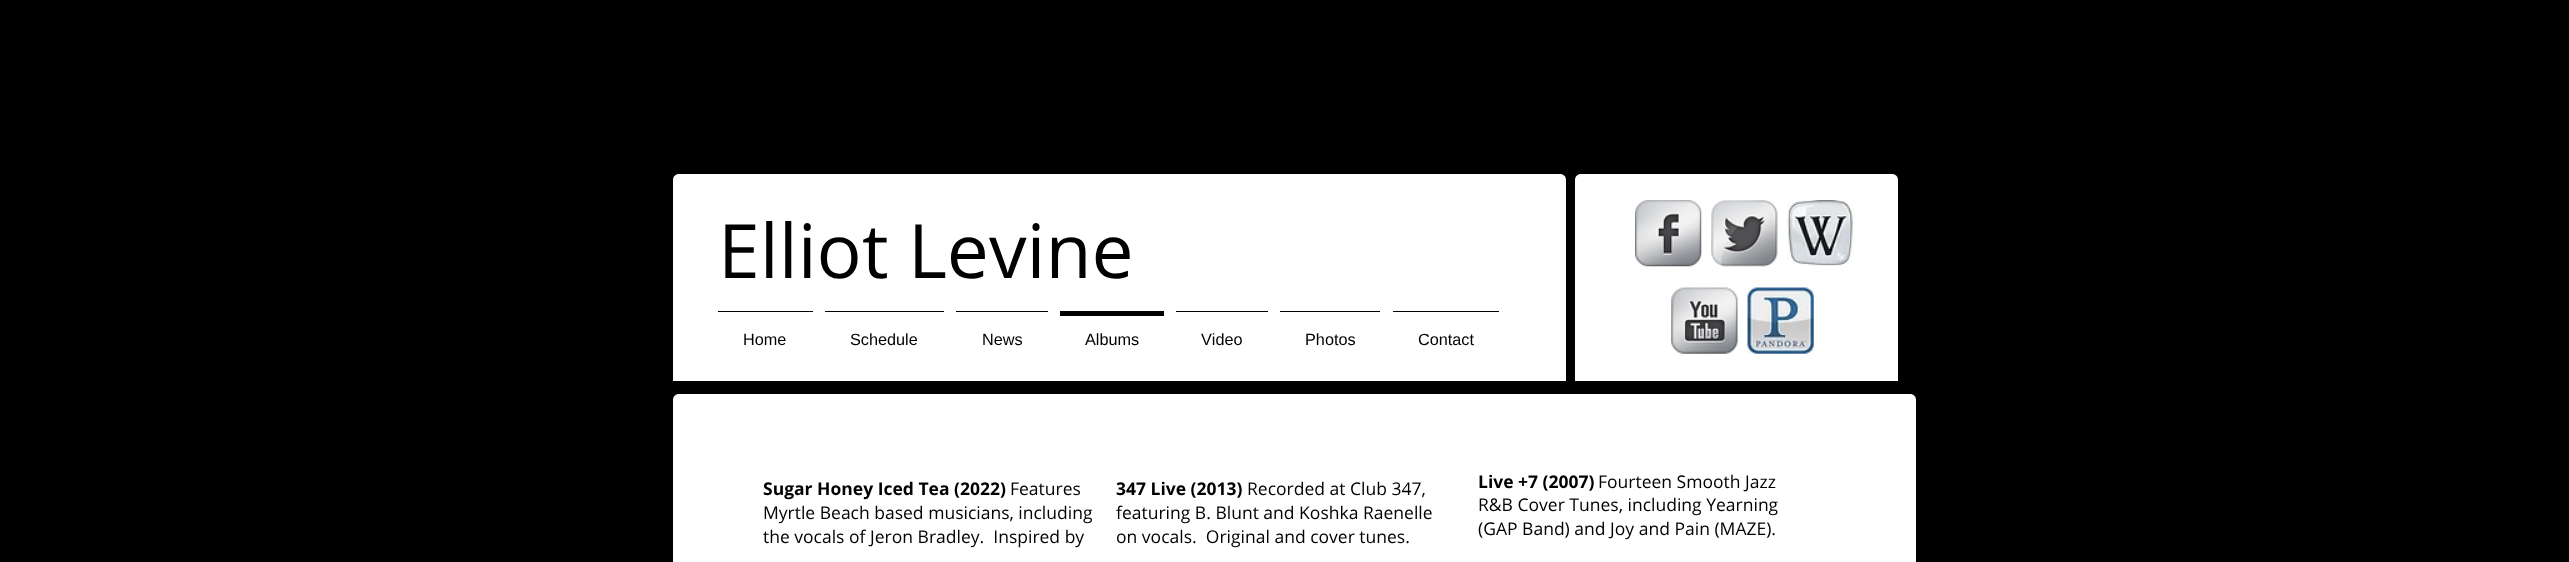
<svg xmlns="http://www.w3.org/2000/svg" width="2569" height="562">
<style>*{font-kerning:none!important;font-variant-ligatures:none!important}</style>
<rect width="100%" height="100%" fill="#000"/>
<path d="M679 174h881c3.5 0 6 2.5 6 6v201h-893v-201c0-3.5 2.5-6 6-6z" fill="#fff"/>
<text x="718" y="278" style="font-family:Open Sans;font-size:75px;fill:#000">Elliot Levine</text>
<rect x="718" y="311" width="95" height="1" fill="#000"/>
<text x="743" y="345" style="font-family:Liberation Sans;font-size:16.25px;fill:#000">Home</text>
<rect x="825" y="311" width="119" height="1" fill="#000"/>
<text x="850" y="345" style="font-family:Liberation Sans;font-size:16.25px;fill:#000">Schedule</text>
<rect x="956" y="311" width="92" height="1" fill="#000"/>
<text x="982" y="345" style="font-family:Liberation Sans;font-size:16.25px;fill:#000">News</text>
<rect x="1060" y="311" width="104" height="5" fill="#000"/>
<text x="1085" y="345" style="font-family:Liberation Sans;font-size:16.25px;fill:#000">Albums</text>
<rect x="1176" y="311" width="92" height="1" fill="#000"/>
<text x="1201" y="345" style="font-family:Liberation Sans;font-size:16.25px;fill:#000">Video</text>
<rect x="1280" y="311" width="100" height="1" fill="#000"/>
<text x="1305" y="345" style="font-family:Liberation Sans;font-size:16.25px;fill:#000">Photos</text>
<rect x="1393" y="311" width="106" height="1" fill="#000"/>
<text x="1418" y="345" style="font-family:Liberation Sans;font-size:16.25px;fill:#000">Contact</text>
<path d="M1581 174h311c3.5 0 6 2.5 6 6v201h-323v-201c0-3.5 2.5-6 6-6z" fill="#fff"/>
<image x="1635" y="200" width="67" height="67" href="media/1.png"/>
<image x="1711" y="200" width="67" height="67" href="media/2.png"/>
<image x="1787" y="200" width="67" height="66" href="media/3.png"/>
<image x="1671" y="287" width="67" height="67" href="media/4.png"/>
<image x="1747" y="287" width="67" height="67" href="media/5.png"/>
<path d="M679 394h1231c3.5 0 6 2.5 6 6v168h-1243v-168c0-3.5 2.5-6 6-6z" fill="#fff"/>
<text x="763" y="495" style="font-family:Open Sans;font-size:17.5px;font-weight:bold;fill:#000">Sugar Honey Iced Tea (2022)</text>
<text x="1010" y="495" style="font-family:Open Sans;font-size:17.5px;fill:#000">Features</text>
<text x="763" y="519" style="font-family:Open Sans;font-size:17.5px;fill:#000">Myrtle Beach based musicians, including</text>
<text x="763" y="543" style="font-family:Open Sans;font-size:17.5px;fill:#000" xml:space="preserve">the vocals of Jeron Bradley.  Inspired by</text>
<text x="1116" y="495" style="font-family:Open Sans;font-size:17.5px;font-weight:bold;fill:#000">347 Live (2013)</text>
<text x="1247" y="495" style="font-family:Open Sans;font-size:17.5px;fill:#000">Recorded at Club 347,</text>
<text x="1116" y="519" style="font-family:Open Sans;font-size:17.5px;fill:#000">featuring B. Blunt and Koshka Raenelle</text>
<text x="1116" y="543" style="font-family:Open Sans;font-size:17.5px;fill:#000" xml:space="preserve">on vocals.  Original and cover tunes.</text>
<text x="1478" y="488" style="font-family:Open Sans;font-size:17.5px;font-weight:bold;fill:#000">Live +7 (2007)</text>
<text x="1598" y="488" style="font-family:Open Sans;font-size:17.5px;fill:#000">Fourteen Smooth Jazz</text>
<text x="1478" y="511" style="font-family:Open Sans;font-size:17.5px;fill:#000">R&amp;B Cover Tunes, including Yearning</text>
<text x="1478" y="535" style="font-family:Open Sans;font-size:17.5px;fill:#000">(GAP Band) and Joy and Pain (MAZE).</text>
</svg>
